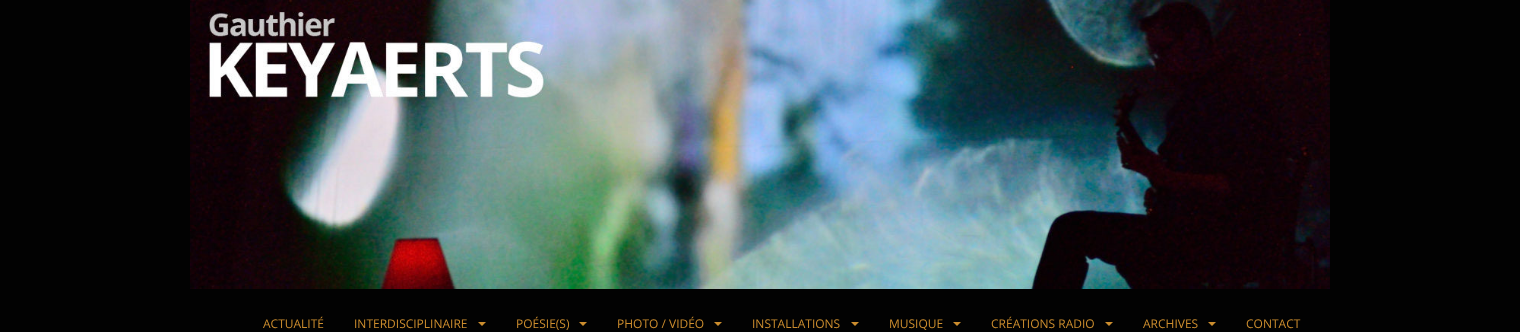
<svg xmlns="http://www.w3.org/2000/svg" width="1520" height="332">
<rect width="100%" height="100%" fill="#020202"/>
<image x="190" y="0" width="1140" height="289" href="media/1.png"/>
<text x="263" y="328" style="font-family:Open Sans;font-size:12px;fill:#cc8d2e">ACTUALITÉ</text>
<text x="354" y="328" style="font-family:Open Sans;font-size:12px;fill:#cc8d2e">INTERDISCIPLINAIRE</text>
<path d="M478 322h8l-4 4z" fill="#cc8d2e"/>
<text x="516" y="328" style="font-family:Open Sans;font-size:12px;fill:#cc8d2e">POÉSIE(S)</text>
<path d="M579 322h8l-4 4z" fill="#cc8d2e"/>
<text x="617" y="328" style="font-family:Open Sans;font-size:12px;fill:#cc8d2e">PHOTO / VIDÉO</text>
<path d="M714 322h8l-4 4z" fill="#cc8d2e"/>
<text x="752" y="328" style="font-family:Open Sans;font-size:12px;fill:#cc8d2e">INSTALLATIONS</text>
<path d="M851 322h8l-4 4z" fill="#cc8d2e"/>
<text x="889" y="328" style="font-family:Open Sans;font-size:12px;fill:#cc8d2e">MUSIQUE</text>
<path d="M953 322h8l-4 4z" fill="#cc8d2e"/>
<text x="991" y="328" style="font-family:Open Sans;font-size:12px;fill:#cc8d2e">CRÉATIONS RADIO</text>
<path d="M1105 322h8l-4 4z" fill="#cc8d2e"/>
<text x="1143" y="328" style="font-family:Open Sans;font-size:12px;fill:#cc8d2e">ARCHIVES</text>
<path d="M1208 322h8l-4 4z" fill="#cc8d2e"/>
<text x="1246" y="328" style="font-family:Open Sans;font-size:12px;fill:#cc8d2e">CONTACT</text>
</svg>
